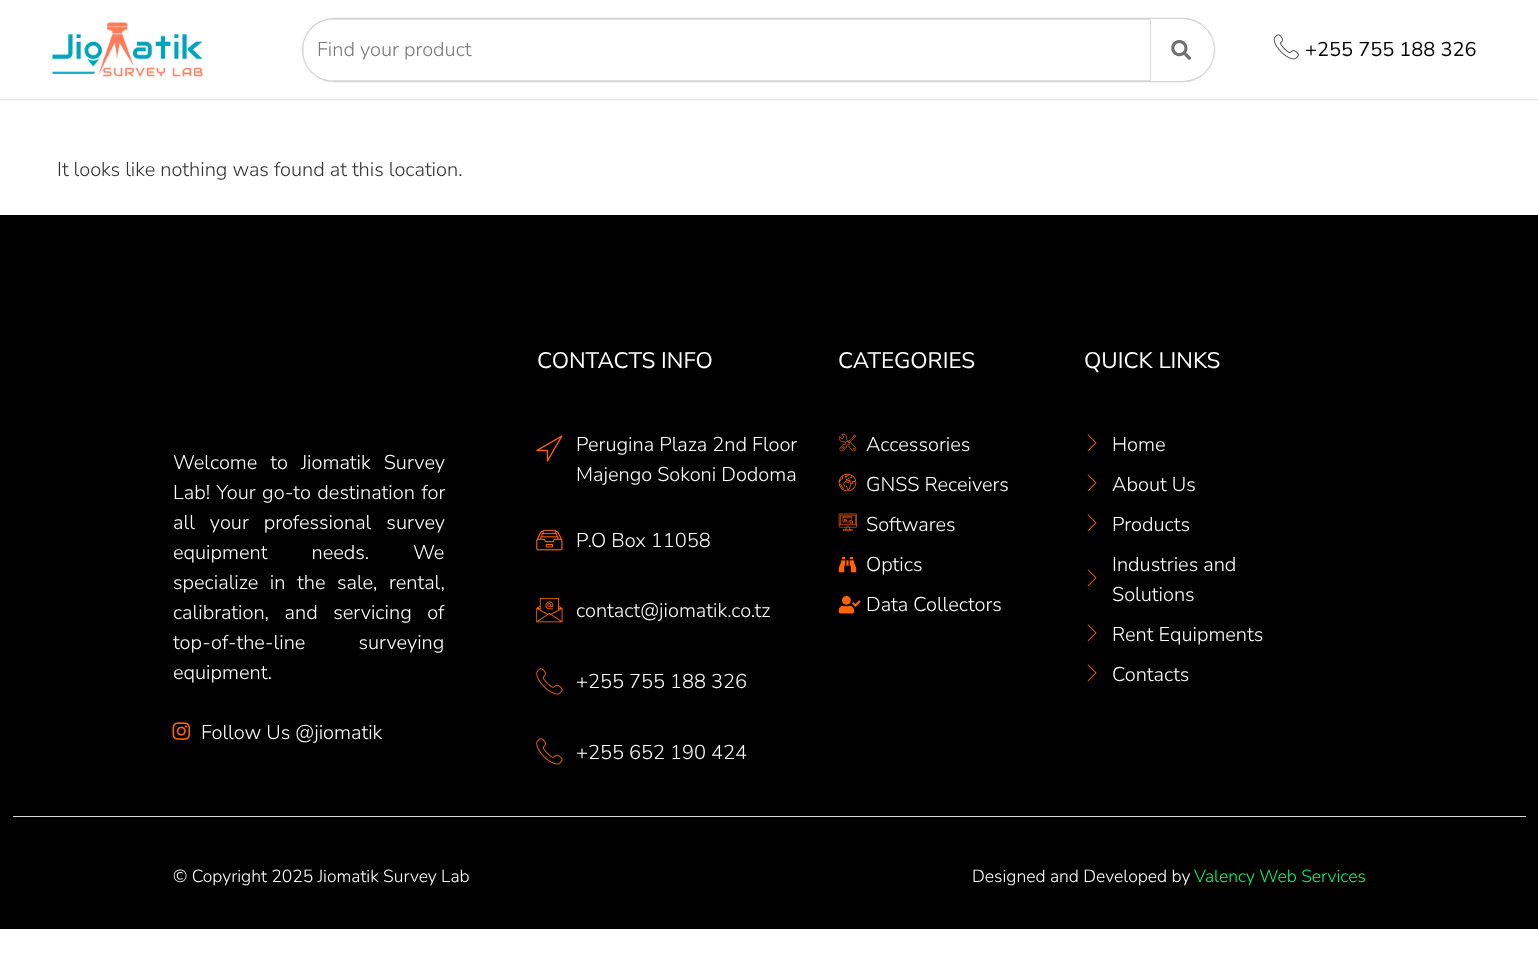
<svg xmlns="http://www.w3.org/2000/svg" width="1538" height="979">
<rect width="100%" height="100%" fill="#fff"/>
<image x="52" y="22" width="151" height="55" href="media/1.png"/>
<rect x="303" y="19" width="911" height="62" rx="31" fill="#00000080" filter="blur(1px)"/>
<path d="M334 19h817v62h-817c-17 0-31-14-31-31c0-17 14-31 31-31z" fill="#fff"/>
<path d="M334 19l-8 1h824v60h-824l8 1h817v-62zm-30 39c-1-5-1-11 0-16z" fill="#dedede" fill-rule="evenodd"/>
<text x="317" y="56" style="font-family:Nunito Sans;font-size:20px;font-weight:300;fill:#7a7a7a">Find your product</text>
<path d="M1151 19h32c17 0 31 14 31 31c0 17-14 31-31 31h-32z" fill="#fff"/>
<image x="1171" y="40" width="21" height="20" href="media/2.png"/>
<image x="1273" y="34" width="26" height="26" href="media/3.png"/>
<text x="1305" y="56" style="font-family:Nunito Sans;font-size:20px;fill:#000">+255 755 188 326</text>
<rect y="99" width="1538" height="1" fill="#e2e2e2"/>
<text x="57" y="176" style="font-family:Nunito Sans;font-size:20px;font-weight:300;fill:#333">It looks like nothing was found at this location.</text>
<rect y="215" width="1538" height="714" fill="#000"/>
<text x="173" y="469" word-spacing="8" style="font-family:Nunito Sans;font-size:20px;font-weight:300;fill:#fff">Welcome to Jiomatik Survey</text>
<text x="173" y="499" word-spacing="1.5" style="font-family:Nunito Sans;font-size:20px;font-weight:300;fill:#fff">Lab! Your go-to destination for</text>
<text x="173" y="529" word-spacing="10" style="font-family:Nunito Sans;font-size:20px;font-weight:300;fill:#fff">all your professional survey</text>
<text x="173" y="559" word-spacing="39" style="font-family:Nunito Sans;font-size:20px;font-weight:300;fill:#fff">equipment needs. We</text>
<text x="173" y="589" word-spacing="6.5" style="font-family:Nunito Sans;font-size:20px;font-weight:300;fill:#fff">specialize in the sale, rental,</text>
<text x="173" y="619" word-spacing="10.5" style="font-family:Nunito Sans;font-size:20px;font-weight:300;fill:#fff">calibration, and servicing of</text>
<text x="173" y="649" word-spacing="48" style="font-family:Nunito Sans;font-size:20px;font-weight:300;fill:#fff">top-of-the-line surveying</text>
<text x="173" y="679" style="font-family:Nunito Sans;font-size:20px;font-weight:300;fill:#fff">equipment.</text>
<image x="172" y="722" width="19" height="18" href="media/4.png"/>
<text x="201" y="739" style="font-family:Nunito Sans;font-size:20px;font-weight:300;fill:#fff">Follow Us @jiomatik</text>
<text x="537" y="368" style="font-family:Nunito Sans;font-size:22.5px;fill:#fff">CONTACTS INFO</text>
<image x="536" y="435" width="27" height="27" href="media/5.png"/>
<text x="576" y="451" style="font-family:Nunito Sans;font-size:20px;font-weight:300;fill:#fff">Perugina Plaza 2nd Floor</text>
<text x="576" y="481" style="font-family:Nunito Sans;font-size:20px;font-weight:300;fill:#fff">Majengo Sokoni Dodoma</text>
<image x="536" y="529" width="27" height="22" href="media/6.png"/>
<text x="576" y="547" style="font-family:Nunito Sans;font-size:20px;font-weight:300;fill:#fff">P.O Box 11058</text>
<image x="536" y="597" width="27" height="26" href="media/7.png"/>
<text x="576" y="617" style="font-family:Nunito Sans;font-size:20px;font-weight:300;fill:#fff">contact@jiomatik.co.tz</text>
<image x="536" y="668" width="27" height="27" href="media/8.png"/>
<text x="576" y="688" style="font-family:Nunito Sans;font-size:20px;font-weight:300;fill:#fff">+255 755 188 326</text>
<image x="536" y="738" width="27" height="27" href="media/8.png"/>
<text x="576" y="759" style="font-family:Nunito Sans;font-size:20px;font-weight:300;fill:#fff">+255 652 190 424</text>
<text x="838" y="368" style="font-family:Nunito Sans;font-size:22.5px;fill:#fff">CATEGORIES</text>
<image x="838" y="433" width="19" height="19" href="media/9.png"/>
<text x="866" y="451" style="font-family:Nunito Sans;font-size:20px;font-weight:300;fill:#fff">Accessories</text>
<image x="838" y="473" width="19" height="19" href="media/10.png"/>
<text x="866" y="491" style="font-family:Nunito Sans;font-size:20px;font-weight:300;fill:#fff">GNSS Receivers</text>
<image x="838" y="513" width="19" height="19" href="media/11.png"/>
<text x="866" y="531" style="font-family:Nunito Sans;font-size:20px;font-weight:300;fill:#fff">Softwares</text>
<image x="838" y="557" width="19" height="16" href="media/12.png"/>
<text x="866" y="571" style="font-family:Nunito Sans;font-size:20px;font-weight:300;fill:#fff">Optics</text>
<image x="838" y="595" width="23" height="19" href="media/13.png"/>
<text x="866" y="611" style="font-family:Nunito Sans;font-size:20px;font-weight:300;fill:#fff">Data Collectors</text>
<text x="1084" y="368" style="font-family:Nunito Sans;font-size:22.5px;fill:#fff">QUICK LINKS</text>
<image x="1087" y="434" width="10" height="18" href="media/14.png"/>
<text x="1112" y="451" style="font-family:Nunito Sans;font-size:20px;font-weight:300;fill:#fff">Home</text>
<image x="1087" y="474" width="10" height="18" href="media/14.png"/>
<text x="1112" y="491" style="font-family:Nunito Sans;font-size:20px;font-weight:300;fill:#fff">About Us</text>
<image x="1087" y="514" width="10" height="18" href="media/14.png"/>
<text x="1112" y="531" style="font-family:Nunito Sans;font-size:20px;font-weight:300;fill:#fff">Products</text>
<image x="1087" y="569" width="10" height="18" href="media/14.png"/>
<text x="1112" y="571" style="font-family:Nunito Sans;font-size:20px;font-weight:300;fill:#fff">Industries and</text>
<text x="1112" y="601" style="font-family:Nunito Sans;font-size:20px;font-weight:300;fill:#fff">Solutions</text>
<image x="1087" y="624" width="10" height="18" href="media/14.png"/>
<text x="1112" y="641" style="font-family:Nunito Sans;font-size:20px;font-weight:300;fill:#fff">Rent Equipments</text>
<image x="1087" y="664" width="10" height="18" href="media/14.png"/>
<text x="1112" y="681" style="font-family:Nunito Sans;font-size:20px;font-weight:300;fill:#fff">Contacts</text>
<rect x="13" y="816" width="1513" height="1" fill="#d9d9d9"/>
<text x="173" y="882" style="font-family:Nunito Sans;font-size:17.5px;font-weight:300;fill:#fff">© Copyright 2025 Jiomatik Survey Lab</text>
<text x="972" y="882" style="font-family:Nunito Sans;font-size:17.5px;font-weight:300;fill:#fff">Designed and Developed by</text>
<text x="1194" y="882" style="font-family:Nunito Sans;font-size:17.5px;font-weight:300;fill:#00f871">Valency Web Services</text>
</svg>
